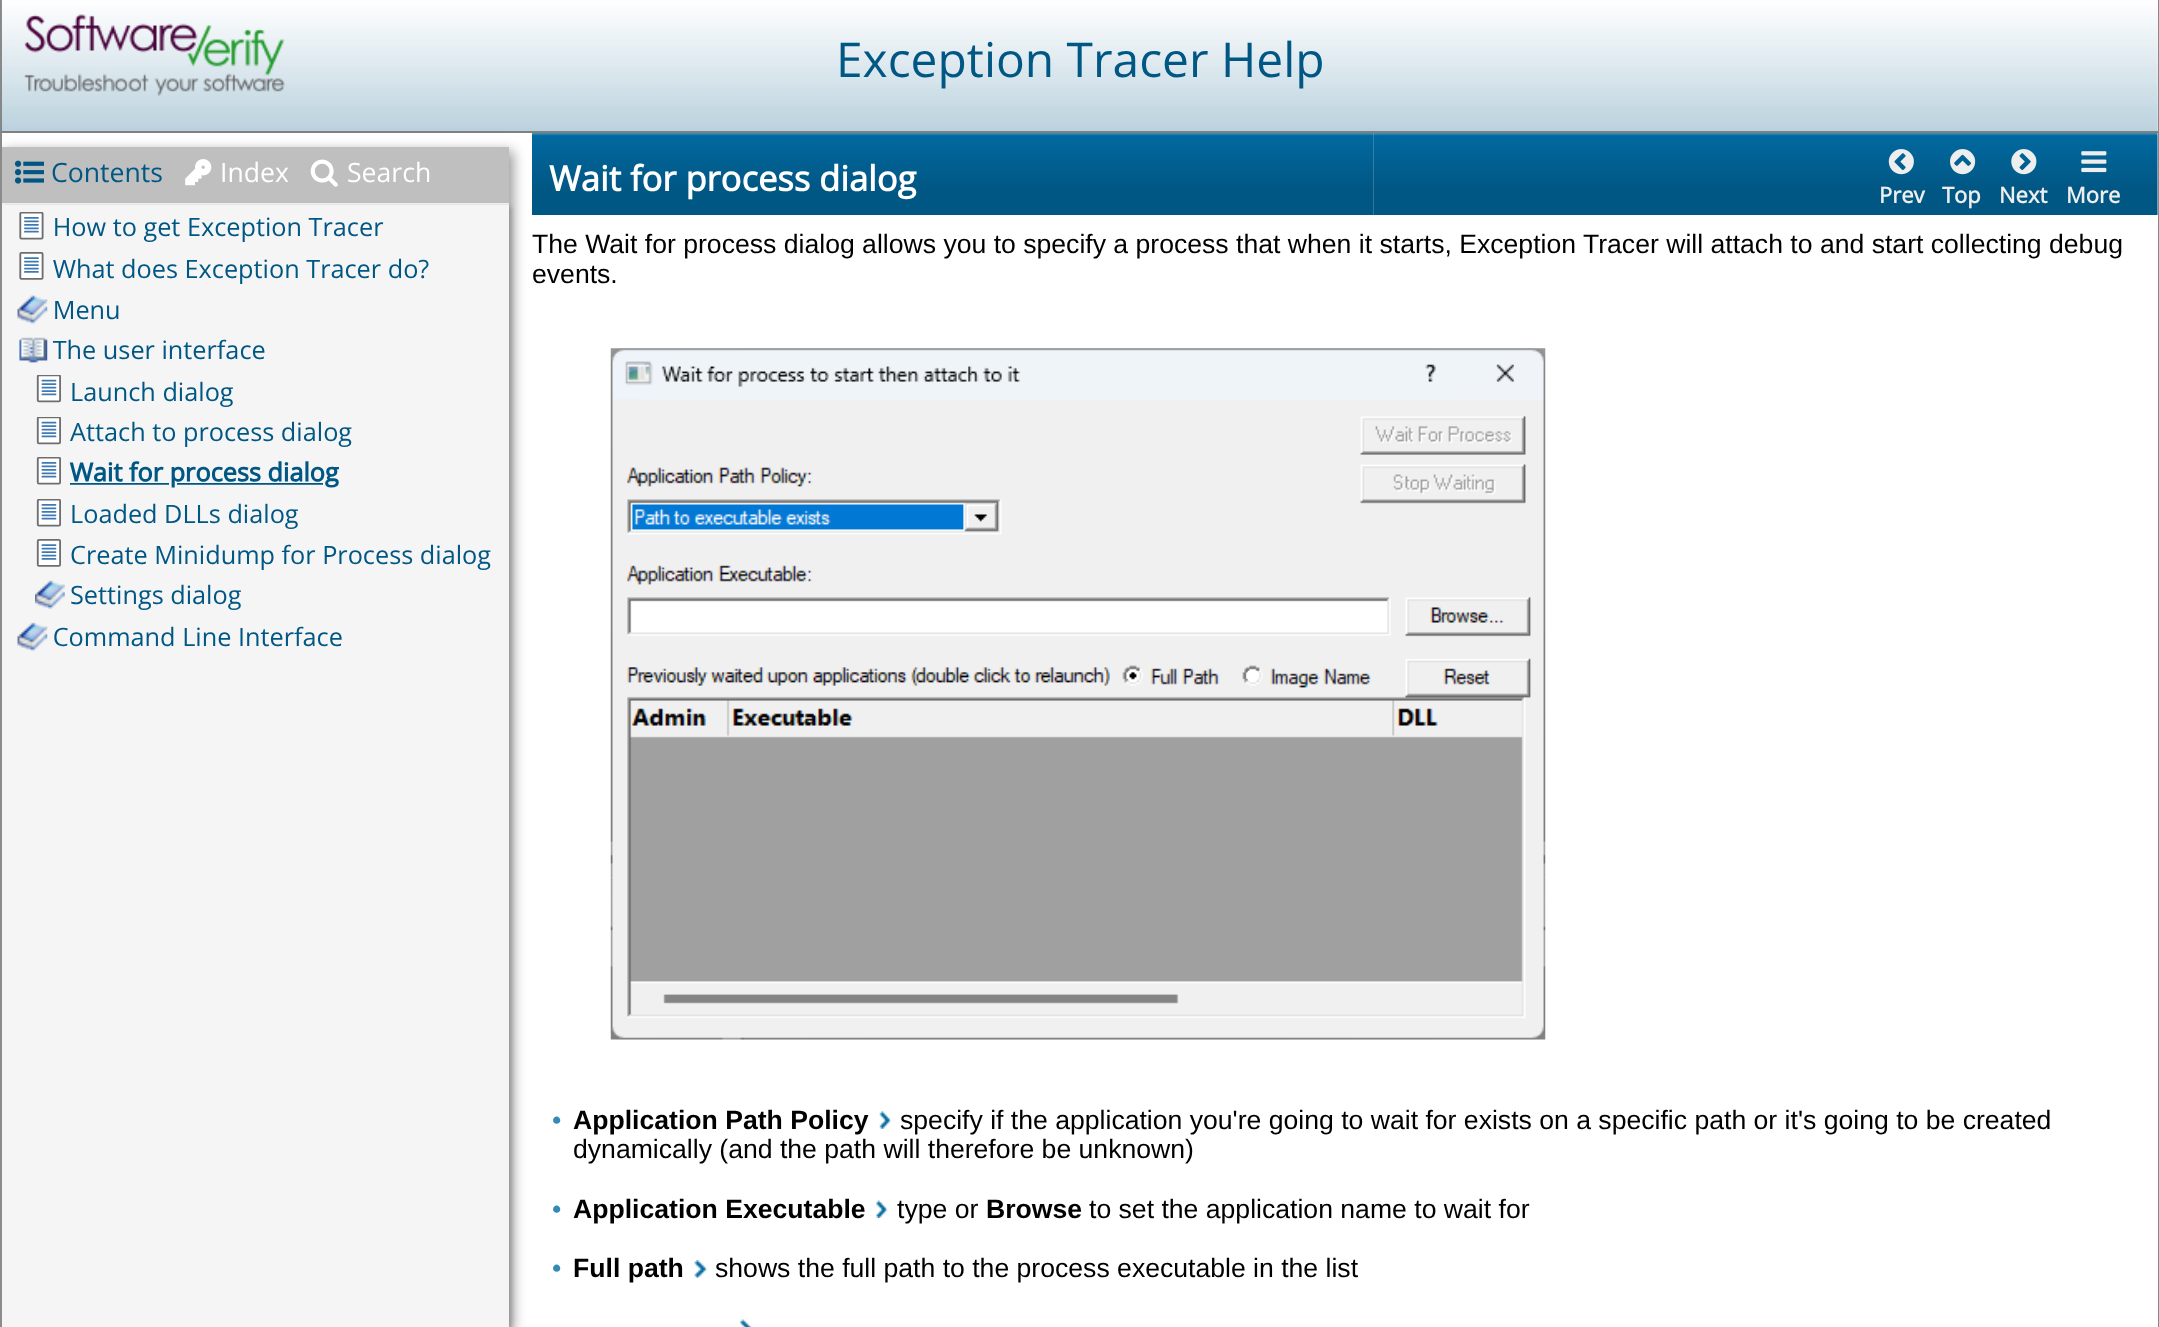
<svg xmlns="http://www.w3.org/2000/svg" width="2159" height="1327">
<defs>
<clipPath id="clip1"><path d="M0 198h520v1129h-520zm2 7h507v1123h-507z" clip-rule="evenodd"/></clipPath>
</defs>
<rect width="100%" height="100%" fill="#fff"/>
<rect x="2158" width="1" height="1327" fill="#888"/>
<rect width="2" height="1327" fill="#888"/>
<image x="1" y="0" width="2157" height="133" href="media/1.png"/>
<image x="23" y="14" width="262" height="82" href="media/2.png"/>
<rect x="2" y="131" width="2156" height="2" fill="#808080"/>
<text x="836" y="77" style="font-family:Open Sans;font-size:47.9px;fill:#015784">Exception Tracer Help</text>
<image x="532" y="133" width="842" height="82" href="media/7.png"/>
<rect x="5" y="151" width="508" height="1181" fill="#959595" filter="blur(6.5px)"/>
<rect x="2" y="203" width="507" height="1124" fill="#f5f5f5"/>
<rect x="2" y="147" width="507" height="56" fill="#bfbfbf"/>
<image x="14" y="160" width="30" height="24" href="media/3.png"/>
<text x="51" y="182" style="font-family:Open Sans;font-size:26.6px;fill:#015784">Contents</text>
<image x="185" y="159" width="27" height="27" href="media/4.png"/>
<text x="220" y="182" style="font-family:Open Sans;font-size:26.6px;fill:#fff">Index</text>
<image x="310" y="159" width="28" height="28" href="media/5.png"/>
<text x="347" y="182" style="font-family:Open Sans;font-size:26.6px;fill:#fff">Search</text>
<g clip-path="url(#clip1)">
<rect x="4" y="207" width="507" height="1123" fill="#959595" filter="blur(2.5px)"/>
</g>
<image x="17" y="212" width="474" height="439" href="media/6.png"/>
<text x="549" y="191" style="font-family:Open Sans;font-size:34.5px;font-weight:bold;fill:#fff">Wait for process dialog</text>
<image x="1373" y="133" width="785" height="82" href="media/8.png"/>
<image x="1888" y="149" width="26" height="26" href="media/9.png"/>
<text x="1879" y="203" style="font-family:Open Sans;font-size:22px;font-weight:bold;fill:#eee">Prev</text>
<image x="1950" y="149" width="26" height="26" href="media/10.png"/>
<text x="1942" y="203" style="font-family:Open Sans;font-size:22px;font-weight:bold;fill:#eee">Top</text>
<image x="2011" y="149" width="26" height="26" href="media/11.png"/>
<text x="1999" y="203" style="font-family:Open Sans;font-size:22px;font-weight:bold;fill:#eee">Next</text>
<image x="2081" y="151" width="26" height="22" href="media/12.png"/>
<text x="2066" y="203" style="font-family:Open Sans;font-size:22px;font-weight:bold;fill:#eee">More</text>
<text x="532" y="253" style="font-family:Liberation Sans;font-size:26.6px;fill:#000">The Wait for process dialog allows you to specify a process that when it starts, Exception Tracer will attach to and start collecting debug</text>
<text x="532" y="283" style="font-family:Liberation Sans;font-size:26.6px;fill:#000">events.</text>
<image x="610" y="348" width="936" height="692" href="media/13.png"/>
<text x="552" y="1129" style="font-family:Liberation Sans;font-size:26.6px;fill:#3489b5">•</text>
<text x="573" y="1129" style="font-family:Liberation Sans;font-size:26.6px;font-weight:bold;fill:#000">Application Path Policy</text>
<image x="879" y="1111" width="13" height="18" href="media/14.png"/>
<text x="900" y="1129" style="font-family:Liberation Sans;font-size:26.6px;fill:#000">specify if the application you're going to wait for exists on a specific path or it's going to be created</text>
<text x="573" y="1158" style="font-family:Liberation Sans;font-size:26.6px;fill:#000">dynamically (and the path will therefore be unknown)</text>
<text x="552" y="1218" style="font-family:Liberation Sans;font-size:26.6px;fill:#3489b5">•</text>
<text x="573" y="1218" style="font-family:Liberation Sans;font-size:26.6px;font-weight:bold;fill:#000">Application Executable</text>
<image x="876" y="1200" width="12" height="18" href="media/15.png"/>
<text x="897" y="1218" style="font-family:Liberation Sans;font-size:26.6px;fill:#000">type or</text>
<text x="986" y="1218" style="font-family:Liberation Sans;font-size:26.6px;font-weight:bold;fill:#000">Browse</text>
<text x="1089" y="1218" style="font-family:Liberation Sans;font-size:26.6px;fill:#000">to set the application name to wait for</text>
<text x="552" y="1277" style="font-family:Liberation Sans;font-size:26.6px;fill:#3489b5">•</text>
<text x="573" y="1277" style="font-family:Liberation Sans;font-size:26.6px;font-weight:bold;fill:#000">Full path</text>
<image x="694" y="1260" width="14" height="18" href="media/16.png"/>
<text x="715" y="1277" style="font-family:Liberation Sans;font-size:26.6px;fill:#000">shows the full path to the process executable in the list</text>
<image x="739" y="1319" width="14" height="8" href="media/17.png"/>
</svg>
